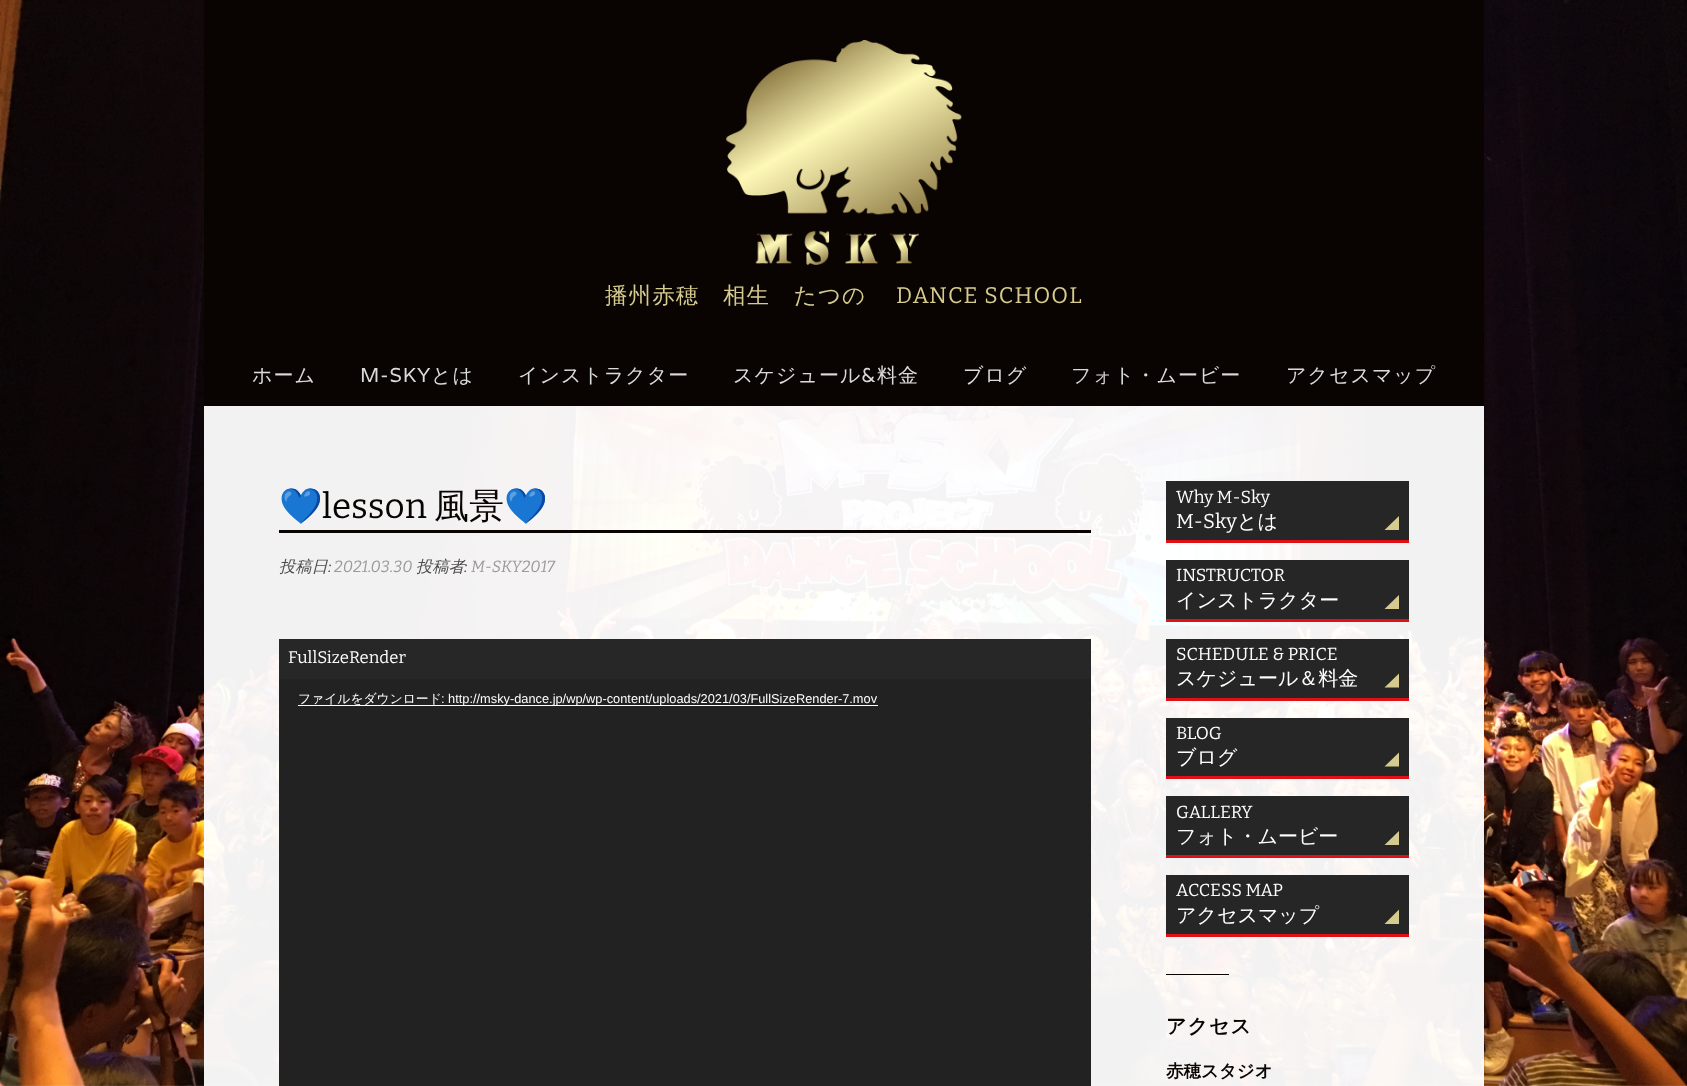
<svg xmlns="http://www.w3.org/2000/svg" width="1687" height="1086">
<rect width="100%" height="100%" fill="#fff"/>
<image x="0" y="0" width="1687" height="1086" href="media/1.png"/>
<rect x="204" width="1280" height="406" fill="#090401"/>
<image x="726" y="40" width="236" height="225" href="media/2.png"/>
<text x="605" y="303" style="font-family:WenQuanYi Zen Hei;font-size:22.5px;font-weight:500;letter-spacing:1.1px;fill:#d6cb8e">播州赤穂　相生　たつの</text>
<text x="896" y="303" style="font-family:Bitter;font-size:22.5px;letter-spacing:1.1px;fill:#d6cb8e">DANCE SCHOOL</text>
<text x="252" y="382" style="font-family:WenQuanYi Zen Hei;font-size:20px;font-weight:500;letter-spacing:1px;fill:#dbdada">ホーム</text>
<text x="360" y="382" style="font-family:Varela;font-size:20px;letter-spacing:1px;fill:#dbdada">M-SKY</text>
<text x="431" y="382" style="font-family:WenQuanYi Zen Hei;font-size:20px;font-weight:500;letter-spacing:1px;fill:#dbdada">とは</text>
<text x="518" y="382" style="font-family:WenQuanYi Zen Hei;font-size:20px;font-weight:500;letter-spacing:1px;fill:#dbdada">インストラクター</text>
<text x="733" y="382" style="font-family:WenQuanYi Zen Hei;font-size:20px;font-weight:500;letter-spacing:1px;fill:#dbdada">スケジュール</text>
<text x="861" y="382" style="font-family:Varela;font-size:20px;letter-spacing:1px;fill:#dbdada">&amp;</text>
<text x="877" y="382" style="font-family:WenQuanYi Zen Hei;font-size:20px;font-weight:500;letter-spacing:1px;fill:#dbdada">料金</text>
<text x="963" y="382" style="font-family:WenQuanYi Zen Hei;font-size:20px;font-weight:500;letter-spacing:1px;fill:#dbdada">ブログ</text>
<text x="1071" y="382" style="font-family:WenQuanYi Zen Hei;font-size:20px;font-weight:500;letter-spacing:1px;fill:#dbdada">フォト・ムービー</text>
<text x="1286" y="382" style="font-family:WenQuanYi Zen Hei;font-size:20px;font-weight:500;letter-spacing:1px;fill:#dbdada">アクセスマップ</text>
<rect x="204" y="406" width="1280" height="680" fill="#fffffff2"/>
<rect x="279" y="530" width="812" height="3" fill="#090401"/>
<text x="279" y="518" style="font-family:Noto Color Emoji;font-size:35px;fill:#090401">💙</text>
<text x="322" y="518" style="font-family:Bitter;font-size:35px;fill:#090401">lesson</text>
<text x="434" y="518" style="font-family:WenQuanYi Zen Hei;font-size:35px;font-weight:500;fill:#090401">風景</text>
<text x="504" y="518" style="font-family:Noto Color Emoji;font-size:35px;fill:#090401">💙</text>
<text x="279" y="572" style="font-family:WenQuanYi Zen Hei;font-size:16.25px;font-weight:500;font-style:italic;fill:#4d4d4d">投稿日</text>
<text x="328" y="572" style="font-family:Bitter;font-size:16.25px;font-weight:100;font-style:italic;fill:#4d4d4d">:</text>
<text x="334" y="572" style="font-family:Bitter;font-size:16.25px;font-weight:100;font-style:italic;fill:#9a9a9a">2021.03.30</text>
<text x="416" y="572" style="font-family:WenQuanYi Zen Hei;font-size:16.25px;font-weight:500;font-style:italic;fill:#4d4d4d">投稿者</text>
<text x="471" y="572" style="font-family:Bitter;font-size:16.25px;font-weight:100;font-style:italic;fill:#9a9a9a">M-SKY2017</text>
<text x="464" y="572" style="font-family:Bitter;font-size:16.25px;font-weight:100;font-style:italic;fill:#4d4d4d">:</text>
<rect x="279" y="639" width="812" height="447" fill="#222"/>
<rect x="279" y="639" width="812" height="40" fill="#282828f2"/>
<text x="288" y="663" style="font-family:Bitter;font-size:16.75px;fill:#fff">FullSizeRender</text>
<rect x="298" y="705" width="580" height="1" fill="#fff"/>
<text x="298" y="703" style="font-family:WenQuanYi Zen Hei;font-size:12.8px;font-weight:500;fill:#fff">ファイルをダウンロード</text>
<text x="441" y="703" style="font-family:Liberation Sans;font-size:12.8px;fill:#fff">: http://msky-dance.jp/wp/wp-content/uploads/2021/03/FullSizeRender-7.mov</text>
<rect x="1166" y="481" width="243" height="59" fill="#262626"/>
<rect x="1166" y="540" width="243" height="3" fill="#df1016"/>
<text x="1176" y="503" style="font-family:Bitter;font-size:17.5px;fill:#fff">Why M-Sky</text>
<text x="1176" y="528" style="font-family:Bitter;font-size:20px;fill:#fff">M-Sky</text>
<text x="1237" y="528" style="font-family:WenQuanYi Zen Hei;font-size:20px;font-weight:500;fill:#fff">とは</text>
<path d="M1384.5 530l14.5-14v14z" fill="#d6cb8e"/>
<rect x="1166" y="560" width="243" height="59" fill="#262626"/>
<rect x="1166" y="619" width="243" height="3" fill="#df1016"/>
<text x="1176" y="581" style="font-family:Bitter;font-size:17.5px;fill:#fff">INSTRUCTOR</text>
<text x="1176" y="607" style="font-family:WenQuanYi Zen Hei;font-size:20px;font-weight:500;fill:#fff">インストラクター</text>
<path d="M1384.5 609l14.5-14v14z" fill="#d6cb8e"/>
<rect x="1166" y="639" width="243" height="59" fill="#262626"/>
<rect x="1166" y="698" width="243" height="3" fill="#df1016"/>
<text x="1176" y="660" style="font-family:Bitter;font-size:17.5px;fill:#fff">SCHEDULE &amp; PRICE</text>
<text x="1176" y="685" style="font-family:WenQuanYi Zen Hei;font-size:20px;font-weight:500;fill:#fff">スケジュール＆料金</text>
<path d="M1384.5 687.5l14.5-14v14z" fill="#d6cb8e"/>
<rect x="1166" y="718" width="243" height="58" fill="#262626"/>
<rect x="1166" y="776" width="243" height="3" fill="#df1016"/>
<text x="1176" y="739" style="font-family:Bitter;font-size:17.5px;fill:#fff">BLOG</text>
<text x="1176" y="764" style="font-family:WenQuanYi Zen Hei;font-size:20px;font-weight:500;fill:#fff">ブログ</text>
<path d="M1384.5 766.5l14.5-14v14z" fill="#d6cb8e"/>
<rect x="1166" y="796" width="243" height="59" fill="#262626"/>
<rect x="1166" y="855" width="243" height="3" fill="#df1016"/>
<text x="1176" y="818" style="font-family:Bitter;font-size:17.5px;fill:#fff">GALLERY</text>
<text x="1176" y="843" style="font-family:WenQuanYi Zen Hei;font-size:20px;font-weight:500;fill:#fff">フォト・ムービー</text>
<path d="M1384.5 845l14.5-14v14z" fill="#d6cb8e"/>
<rect x="1166" y="875" width="243" height="59" fill="#262626"/>
<rect x="1166" y="934" width="243" height="3" fill="#df1016"/>
<text x="1176" y="896" style="font-family:Bitter;font-size:17.5px;fill:#fff">ACCESS MAP</text>
<text x="1176" y="922" style="font-family:WenQuanYi Zen Hei;font-size:20px;font-weight:500;fill:#fff">アクセスマップ</text>
<path d="M1384.5 924l14.5-14.5v14.5z" fill="#d6cb8e"/>
<rect x="1166" y="974" width="63" height="1" fill="#090401"/>
<text x="1166" y="1033" style="font-family:WenQuanYi Zen Hei;font-size:20px;font-weight:bold;letter-spacing:1px;fill:#090401">アクセス</text>
<text x="1166" y="1077" style="font-family:WenQuanYi Zen Hei;font-size:17.5px;font-weight:bold;fill:#090401">赤穂スタジオ</text>
</svg>
